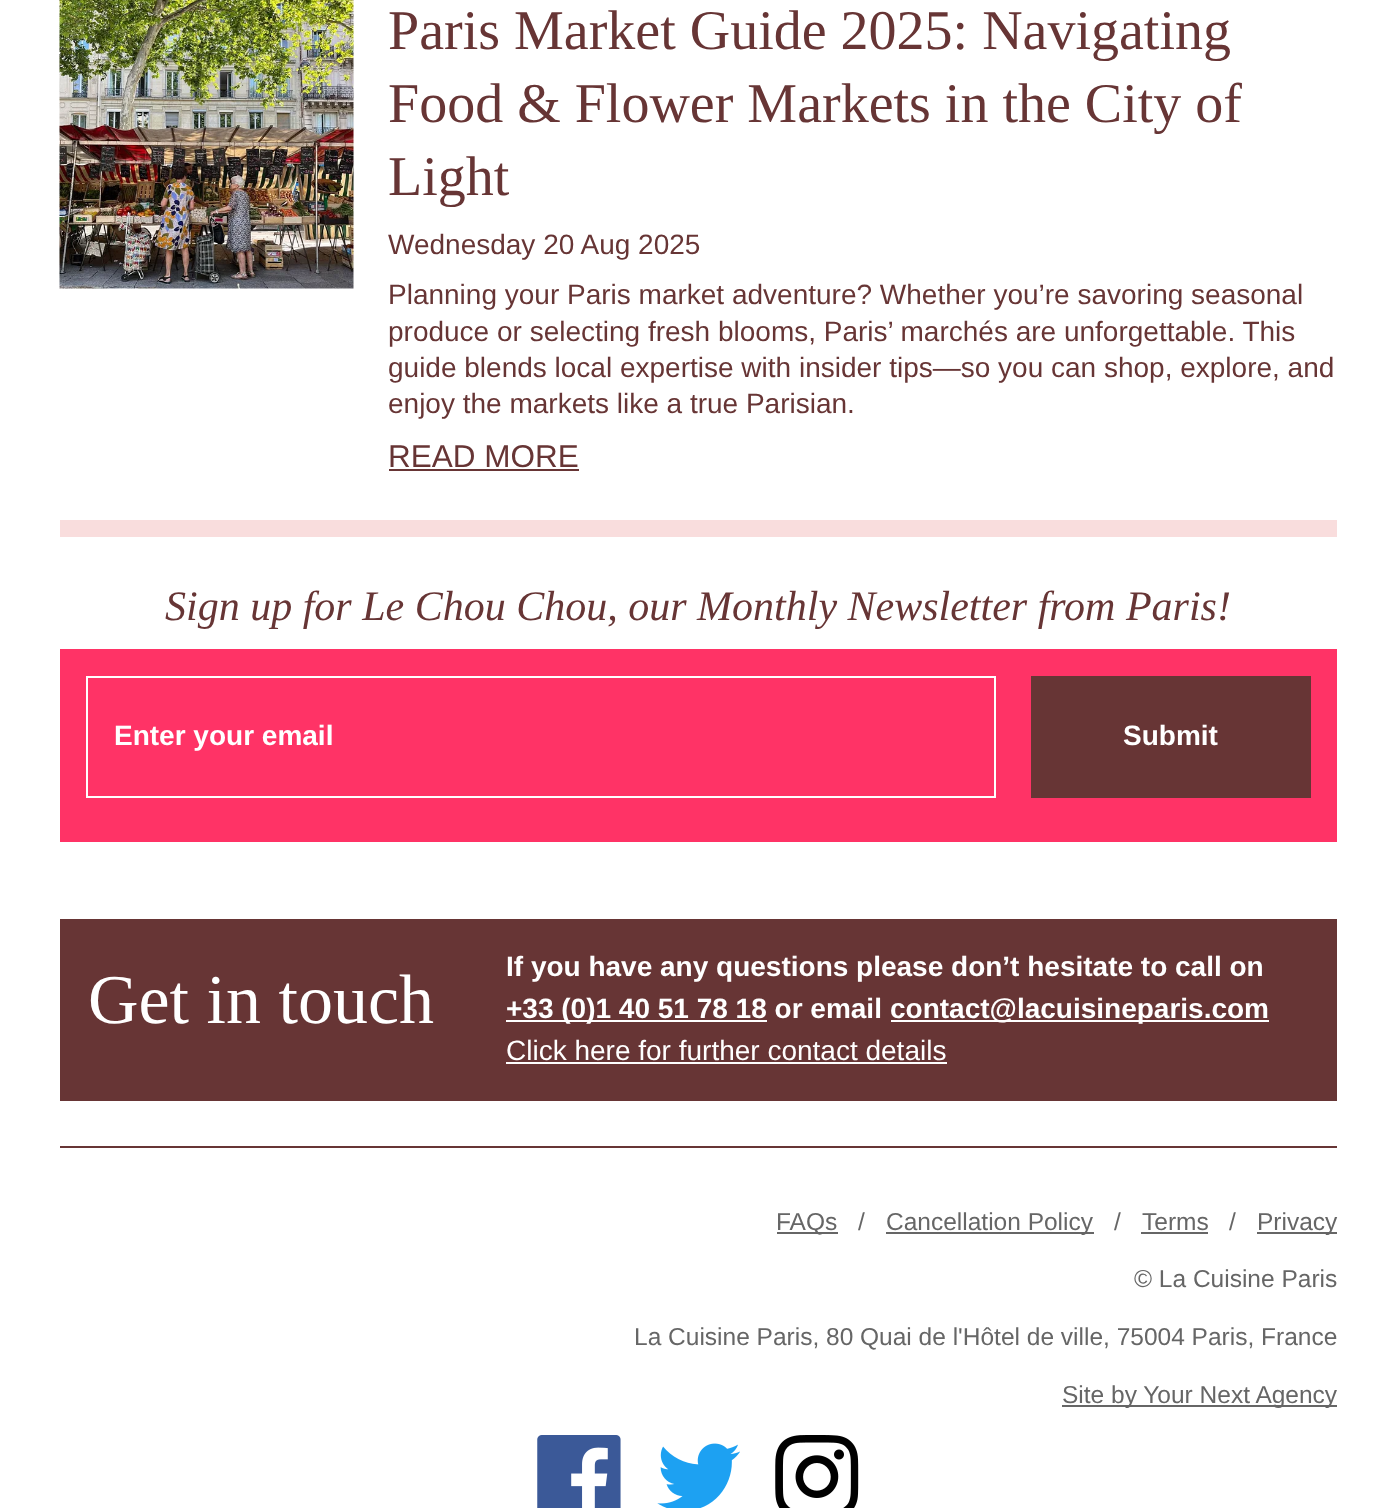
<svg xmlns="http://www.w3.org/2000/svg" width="1396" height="1508">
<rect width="100%" height="100%" fill="#fff"/>
<rect x="60" y="520" width="1277" height="17" fill="#f9dddd"/>
<image x="59" y="0" width="295" height="289" href="media/1.png"/>
<text x="388" y="49" style="font-family:Liberation Serif;font-size:56px;fill:#673535">Paris Market Guide 2025: Navigating</text>
<text x="388" y="122" style="font-family:Liberation Serif;font-size:56px;fill:#673535">Food &amp; Flower Markets in the City of</text>
<text x="388" y="195" style="font-family:Liberation Serif;font-size:56px;fill:#673535">Light</text>
<text x="388" y="254" style="font-family:Liberation Sans;font-size:28px;fill:#673535">Wednesday 20 Aug 2025</text>
<text x="388" y="304" style="font-family:Liberation Sans;font-size:28px;fill:#673535">Planning your Paris market adventure? Whether you’re savoring seasonal</text>
<text x="388" y="341" style="font-family:Liberation Sans;font-size:28px;fill:#673535">produce or selecting fresh blooms, Paris’ marchés are unforgettable. This</text>
<text x="388" y="377" style="font-family:Liberation Sans;font-size:28px;fill:#673535">guide blends local expertise with insider tips—so you can shop, explore, and</text>
<text x="388" y="413" style="font-family:Liberation Sans;font-size:28px;fill:#673535">enjoy the markets like a true Parisian.</text>
<text x="388" y="467" style="font-family:Liberation Sans;font-size:31.5px;fill:#673535">READ MORE</text>
<rect x="389" y="469" width="190" height="2" fill="#673535"/>
<text x="165" y="620" style="font-family:Liberation Serif;font-size:42px;font-style:italic;fill:#673535">Sign up for Le Chou Chou, our Monthly Newsletter from Paris!</text>
<rect x="60" y="649" width="1277" height="193" fill="#f36"/>
<rect x="87" y="677" width="908" height="120" fill="none" stroke="#fff" stroke-width="2"/>
<text x="114" y="745" style="font-family:Liberation Sans;font-size:28px;font-weight:bold;fill:#fff">Enter your email</text>
<rect x="1031" y="676" width="280" height="122" fill="#673535"/>
<text x="1123" y="745" style="font-family:Liberation Sans;font-size:28px;font-weight:bold;fill:#fff">Submit</text>
<rect x="60" y="919" width="1277" height="182" fill="#673535"/>
<text x="88" y="1023" style="font-family:Liberation Serif;font-size:70px;fill:#fff">Get in touch</text>
<text x="506" y="976" style="font-family:Liberation Sans;font-size:28px;font-weight:bold;fill:#fff">If you have any questions please don’t hesitate to call on</text>
<rect x="506" y="1020" width="261" height="2" fill="#fff"/>
<text x="506" y="1018" style="font-family:Liberation Sans;font-size:28px;font-weight:bold;fill:#fff">+33 (0)1 40 51 78 18 or email</text>
<rect x="891" y="1020" width="378" height="2" fill="#fff"/>
<text x="890" y="1018" style="font-family:Liberation Sans;font-size:28px;font-weight:bold;fill:#fff">contact@lacuisineparis.com</text>
<text x="506" y="1060" style="font-family:Liberation Sans;font-size:28px;fill:#fff">Click here for further contact details</text>
<rect x="506" y="1062" width="441" height="2" fill="#fff"/>
<rect x="60" y="1146" width="1277" height="2" fill="#673535"/>
<rect x="777" y="1232" width="61" height="2" fill="#666"/>
<text x="776" y="1230" style="font-family:Liberation Sans;font-size:24.5px;fill:#666">FAQs</text>
<text x="858" y="1230" style="font-family:Liberation Sans;font-size:24.5px;fill:#666">/</text>
<rect x="886" y="1232" width="208" height="2" fill="#666"/>
<text x="886" y="1230" style="font-family:Liberation Sans;font-size:24.5px;fill:#666">Cancellation Policy</text>
<text x="1114" y="1230" style="font-family:Liberation Sans;font-size:24.5px;fill:#666">/</text>
<text x="1142" y="1230" style="font-family:Liberation Sans;font-size:24.5px;fill:#666">Terms</text>
<rect x="1141" y="1232" width="67" height="2" fill="#666"/>
<text x="1229" y="1230" style="font-family:Liberation Sans;font-size:24.5px;fill:#666">/</text>
<rect x="1257" y="1232" width="80" height="2" fill="#666"/>
<text x="1257" y="1230" style="font-family:Liberation Sans;font-size:24.5px;fill:#666">Privacy</text>
<text x="1134" y="1287" style="font-family:Liberation Sans;font-size:24.5px;fill:#666">© La Cuisine Paris</text>
<text x="634" y="1345" style="font-family:Liberation Sans;font-size:24.5px;fill:#666">La Cuisine Paris, 80 Quai de l'Hôtel de ville, 75004 Paris, France</text>
<rect x="1062" y="1405" width="275" height="2" fill="#666"/>
<text x="1062" y="1403" style="font-family:Liberation Sans;font-size:24.5px;fill:#666">Site by Your Next Agency</text>
<image x="537" y="1435" width="84" height="73" href="media/2.png"/>
<image x="657" y="1443" width="83" height="65" href="media/3.png"/>
<image x="775" y="1435" width="84" height="73" href="media/4.png"/>
</svg>
